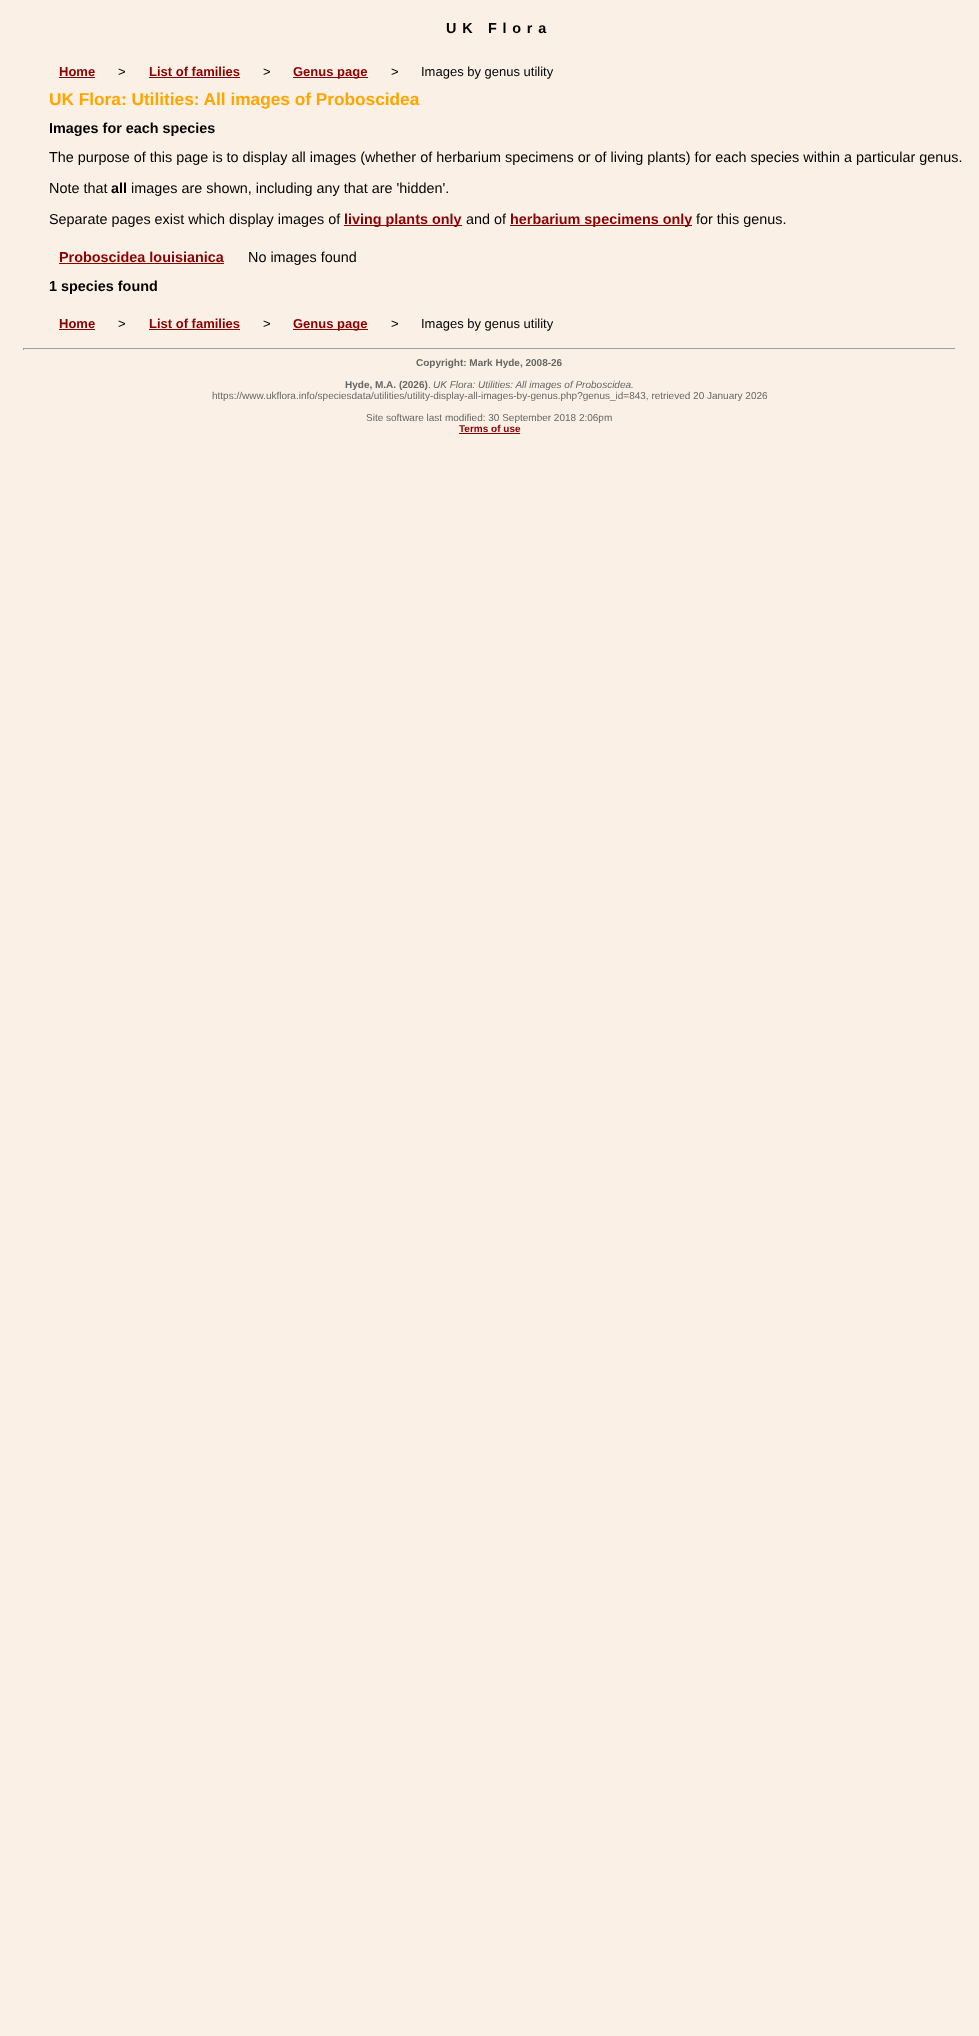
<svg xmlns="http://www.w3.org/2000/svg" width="979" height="2036">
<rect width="100%" height="100%" fill="#faf0e6"/>
<text x="446" y="33" style="font-family:Liberation Sans;font-size:14.4px;font-weight:bold;letter-spacing:5.75px;fill:#000">UK Flora</text>
<text x="59" y="76" style="font-family:Liberation Sans;font-size:13px;font-weight:bold;fill:#8b0000">Home</text>
<rect x="59" y="77" width="36" height="1" fill="#8b0000"/>
<text x="118" y="76" style="font-family:Liberation Sans;font-size:13px;fill:#000">&gt;</text>
<text x="149" y="76" style="font-family:Liberation Sans;font-size:13px;font-weight:bold;fill:#8b0000">List of families</text>
<rect x="149" y="77" width="91" height="1" fill="#8b0000"/>
<text x="263" y="76" style="font-family:Liberation Sans;font-size:13px;fill:#000">&gt;</text>
<rect x="293" y="77" width="75" height="1" fill="#8b0000"/>
<text x="293" y="76" style="font-family:Liberation Sans;font-size:13px;font-weight:bold;fill:#8b0000">Genus page</text>
<text x="391" y="76" style="font-family:Liberation Sans;font-size:13px;fill:#000">&gt;</text>
<text x="421" y="76" style="font-family:Liberation Sans;font-size:13px;fill:#000">Images by genus utility</text>
<text x="49" y="105" style="font-family:Liberation Sans;font-size:17.25px;font-weight:bold;fill:#ffa500">UK Flora: Utilities: All images of Proboscidea</text>
<text x="49" y="133" style="font-family:Liberation Sans;font-size:14.4px;font-weight:bold;fill:#000">Images for each species</text>
<text x="49" y="162" style="font-family:Liberation Sans;font-size:14.4px;fill:#000">The purpose of this page is to display all images (whether of herbarium specimens or of living plants) for each species within a particular genus.</text>
<text x="49" y="193" style="font-family:Liberation Sans;font-size:14.4px;fill:#000">Note that</text>
<text x="111" y="193" style="font-family:Liberation Sans;font-size:14.4px;font-weight:bold;fill:#000">all</text>
<text x="131" y="193" style="font-family:Liberation Sans;font-size:14.4px;fill:#000">images are shown, including any that are 'hidden'.</text>
<text x="49" y="224" style="font-family:Liberation Sans;font-size:14.4px;fill:#000">Separate pages exist which display images of</text>
<rect x="344" y="225" width="118" height="1" fill="#8b0000"/>
<text x="344" y="224" style="font-family:Liberation Sans;font-size:14.4px;font-weight:bold;fill:#8b0000">living plants only</text>
<text x="466" y="224" style="font-family:Liberation Sans;font-size:14.4px;fill:#000">and of</text>
<rect x="510" y="225" width="182" height="1" fill="#8b0000"/>
<text x="510" y="224" style="font-family:Liberation Sans;font-size:14.4px;font-weight:bold;fill:#8b0000">herbarium specimens only</text>
<text x="696" y="224" style="font-family:Liberation Sans;font-size:14.4px;fill:#000">for this genus.</text>
<text x="59" y="262" style="font-family:Liberation Sans;font-size:14.4px;font-weight:bold;fill:#8b0000">Proboscidea louisianica</text>
<rect x="59" y="263" width="165" height="1" fill="#8b0000"/>
<text x="248" y="262" style="font-family:Liberation Sans;font-size:14.4px;fill:#000">No images found</text>
<text x="49" y="291" style="font-family:Liberation Sans;font-size:14.4px;font-weight:bold;fill:#000">1 species found</text>
<text x="59" y="328" style="font-family:Liberation Sans;font-size:13px;font-weight:bold;fill:#8b0000">Home</text>
<rect x="59" y="329" width="36" height="1" fill="#8b0000"/>
<text x="118" y="328" style="font-family:Liberation Sans;font-size:13px;fill:#000">&gt;</text>
<text x="149" y="328" style="font-family:Liberation Sans;font-size:13px;font-weight:bold;fill:#8b0000">List of families</text>
<rect x="149" y="329" width="91" height="1" fill="#8b0000"/>
<text x="263" y="328" style="font-family:Liberation Sans;font-size:13px;fill:#000">&gt;</text>
<rect x="293" y="329" width="75" height="1" fill="#8b0000"/>
<text x="293" y="328" style="font-family:Liberation Sans;font-size:13px;font-weight:bold;fill:#8b0000">Genus page</text>
<text x="391" y="328" style="font-family:Liberation Sans;font-size:13px;fill:#000">&gt;</text>
<text x="421" y="328" style="font-family:Liberation Sans;font-size:13px;fill:#000">Images by genus utility</text>
<rect x="23" y="348" width="933" height="1" fill="#9f9f9f"/>
<rect x="955" y="348" width="1" height="2" fill="#eee"/>
<rect x="23" y="349" width="933" height="1" fill="#eee"/>
<rect x="23" y="348" width="1" height="2" fill="#9f9f9f"/>
<text x="416" y="366" style="font-family:Liberation Sans;font-size:10px;font-weight:bold;fill:#666">Copyright: Mark Hyde, 2008-26</text>
<text x="345" y="388" style="font-family:Liberation Sans;font-size:10px;font-weight:bold;fill:#666">Hyde, M.A. (2026)</text>
<text x="428" y="388" style="font-family:Liberation Sans;font-size:10px;fill:#666">.</text>
<text x="433" y="388" style="font-family:Liberation Sans;font-size:10px;font-style:italic;fill:#666">UK Flora: Utilities: All images of Proboscidea.</text>
<text x="212" y="399" style="font-family:Liberation Sans;font-size:10px;fill:#666">https://www.ukflora.info/speciesdata/utilities/utility-display-all-images-by-genus.php?genus_id=843, retrieved 20 January 2026</text>
<text x="366" y="421" style="font-family:Liberation Sans;font-size:10px;fill:#666">Site software last modified: 30 September 2018 2:06pm</text>
<text x="459" y="432" style="font-family:Liberation Sans;font-size:10px;font-weight:bold;fill:#8b0000">Terms of use</text>
<rect x="459" y="433" width="61" height="1" fill="#8b0000"/>
</svg>
